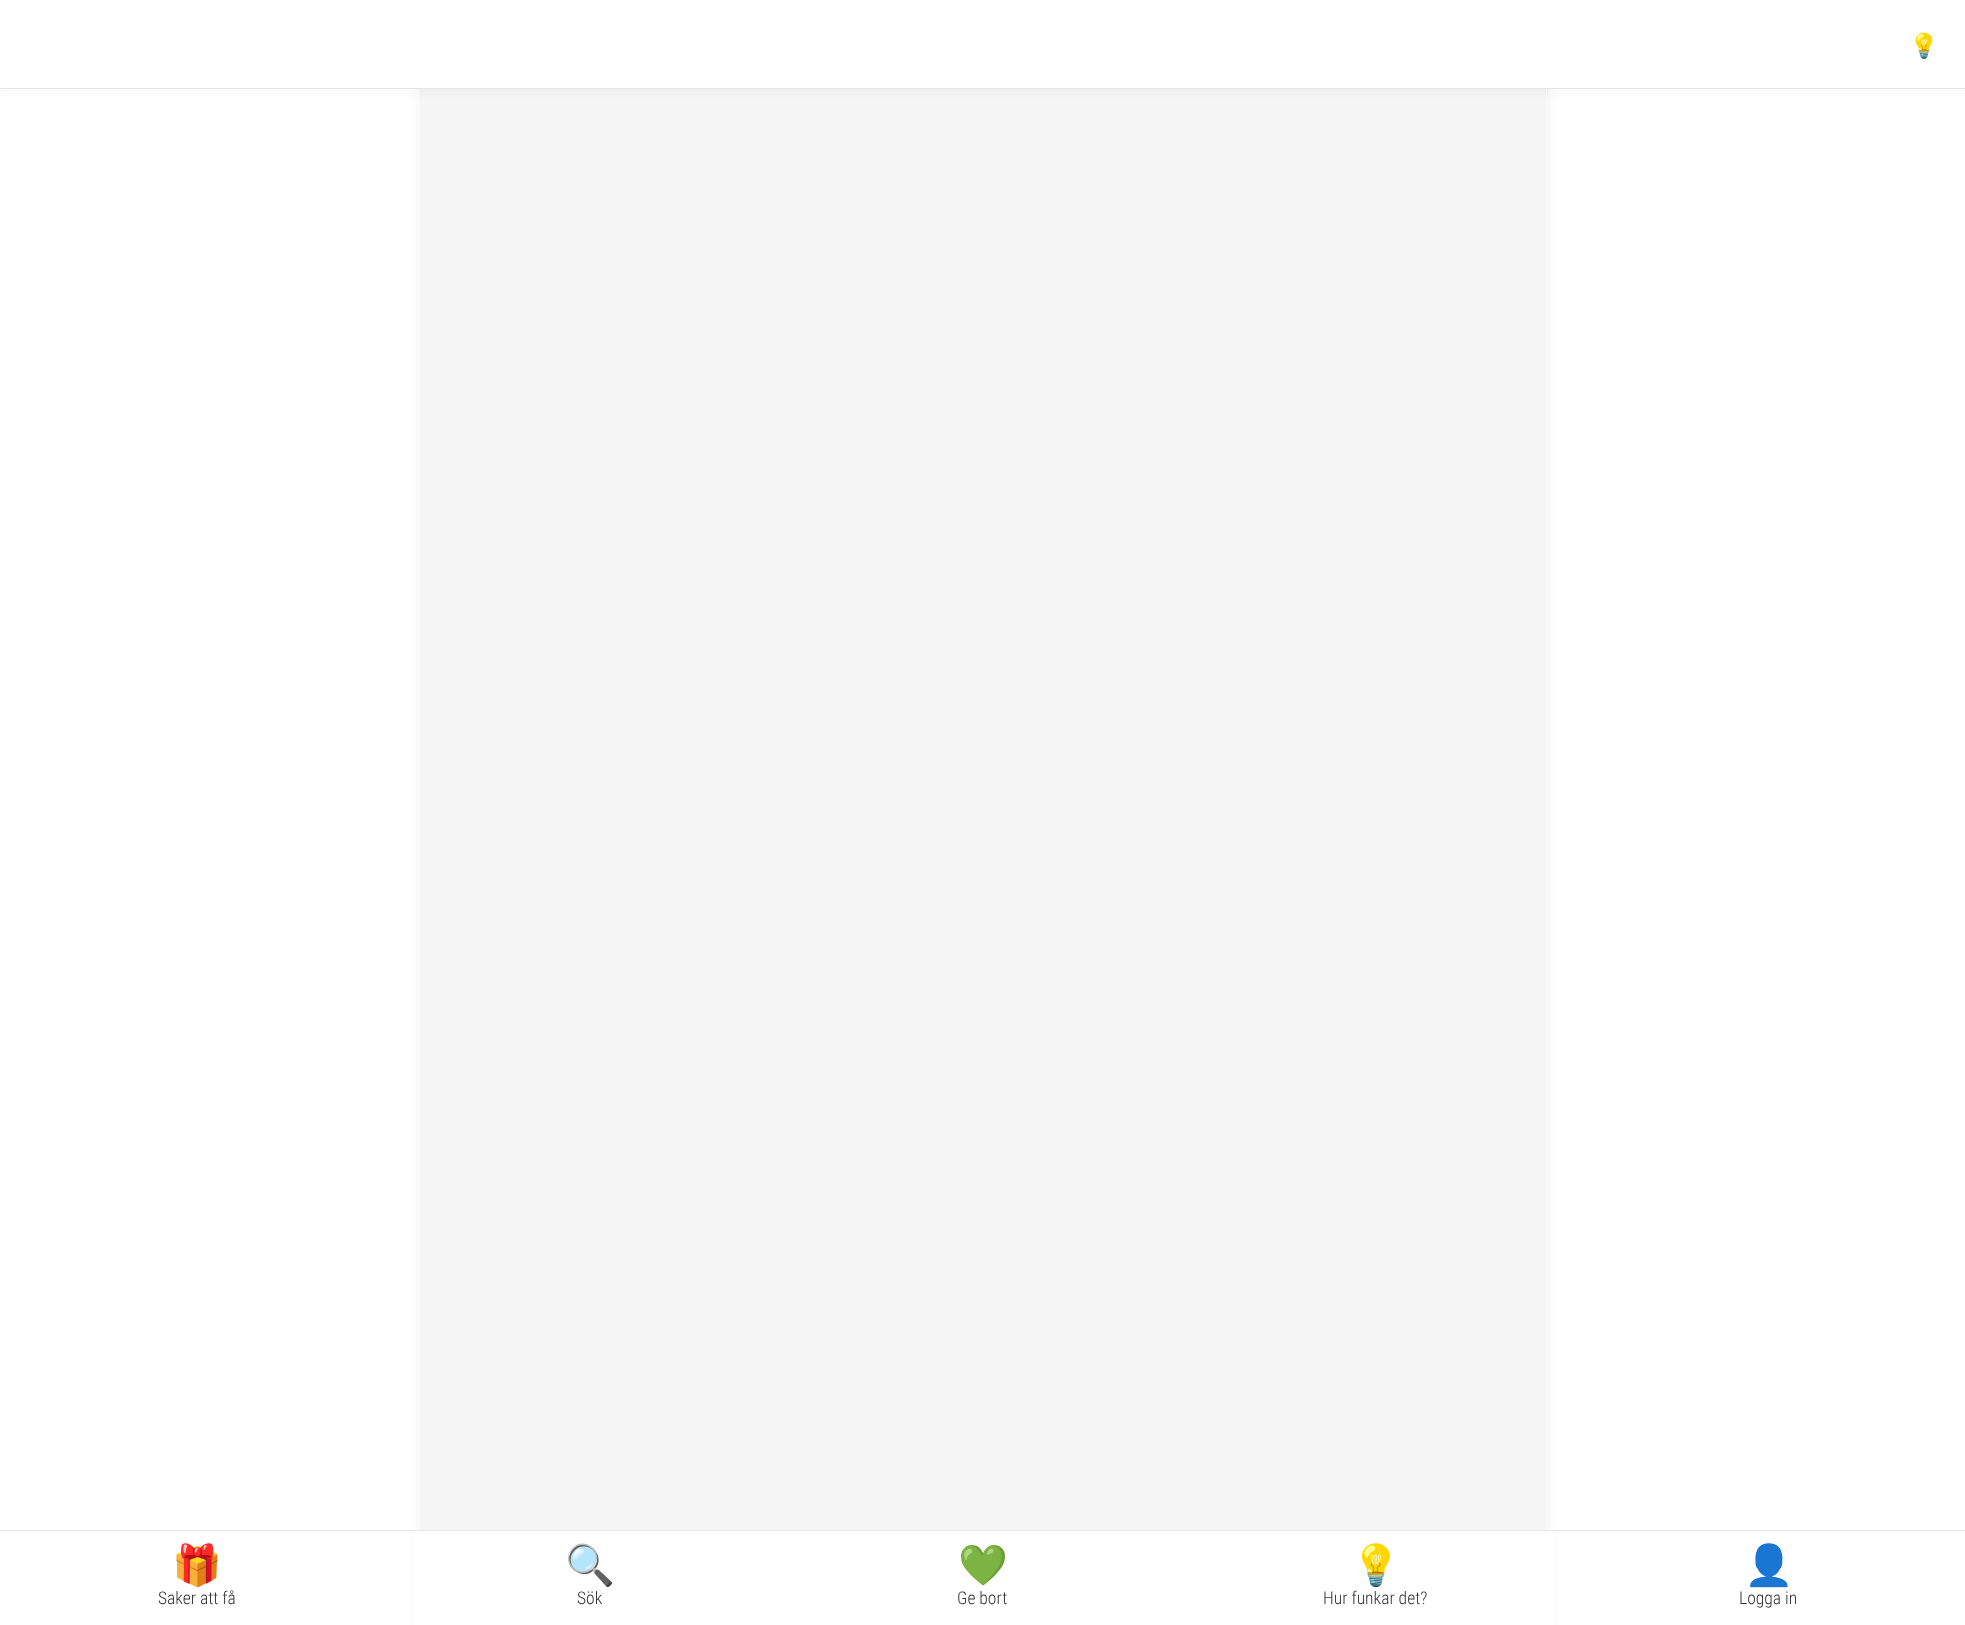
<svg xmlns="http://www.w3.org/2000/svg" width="1965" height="1625">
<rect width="100%" height="100%" fill="#fff"/>
<rect x="420" y="88" width="1128" height="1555" fill="#0000000d" filter="blur(6px)"/>
<rect x="1546" y="89" width="1" height="1441" fill="#fff"/>
<rect x="420.5" y="88.5" width="1127" height="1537" fill="none" stroke="#f5f5f5"/>
<rect x="421" y="89" width="1125" height="1441" fill="#f5f5f5"/>
<rect width="1965" height="89" fill="#0000000d" filter="blur(6px)"/>
<rect width="1965" height="88" fill="#fff"/>
<rect y="88" width="1965" height="1" fill="#e5e5e5"/>
<text x="1909" y="54" style="font-family:Noto Color Emoji;font-size:24px;fill:#777">💡</text>
<rect x="415" y="1531" width="1138" height="94" fill="#fff"/>
<rect y="1530" width="1965" height="1" fill="#e5e5e5"/>
<text x="172" y="1579" style="font-family:Noto Color Emoji;font-size:40px;fill:#1e73be">🎁</text>
<text x="158" y="1604" style="font-family:Roboto Condensed;font-size:17.5px;font-weight:300;fill:#333">Saker att få</text>
<text x="565" y="1579" style="font-family:Noto Color Emoji;font-size:40px;fill:#1e73be">🔍</text>
<text x="577" y="1604" style="font-family:Roboto Condensed;font-size:17.5px;font-weight:300;fill:#333">Sök</text>
<text x="958" y="1579" style="font-family:Noto Color Emoji;font-size:40px;fill:#1e73be">💚</text>
<text x="957" y="1604" style="font-family:Roboto Condensed;font-size:17.5px;font-weight:300;fill:#333">Ge bort</text>
<text x="1351" y="1579" style="font-family:Noto Color Emoji;font-size:40px;fill:#1e73be">💡</text>
<text x="1323" y="1604" style="font-family:Roboto Condensed;font-size:17.5px;font-weight:300;fill:#333">Hur funkar det?</text>
<text x="1744" y="1579" style="font-family:Noto Color Emoji;font-size:40px;fill:#1e73be">👤</text>
<text x="1739" y="1604" style="font-family:Roboto Condensed;font-size:17.5px;font-weight:300;fill:#333">Logga in</text>
</svg>
